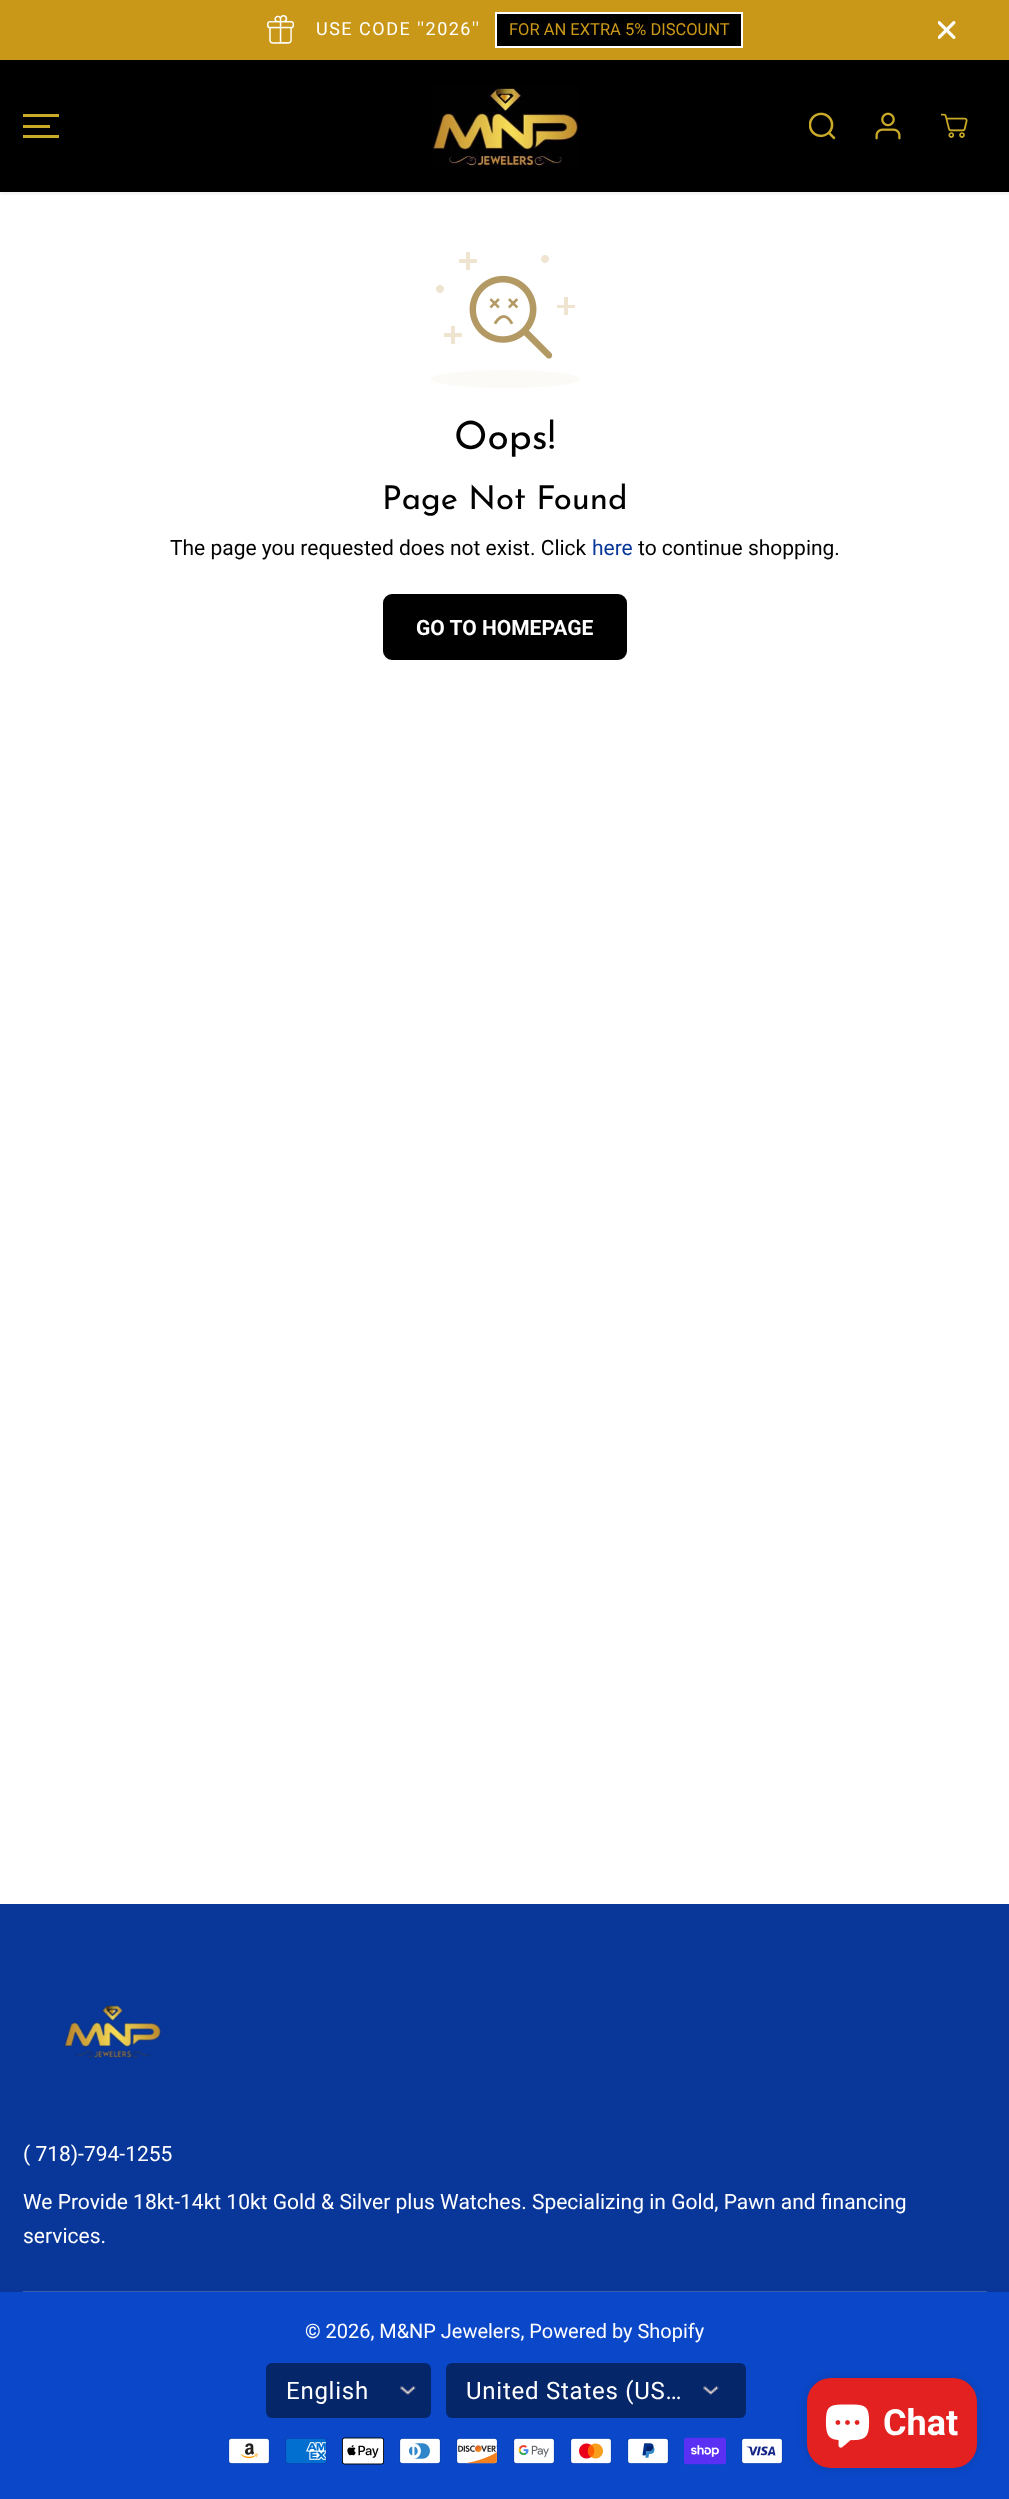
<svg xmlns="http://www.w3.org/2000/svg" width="1009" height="2499">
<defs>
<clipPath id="clip1"><rect x="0" y="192" width="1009" height="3"/></clipPath>
</defs>
<rect width="100%" height="100%" fill="#fff"/>
<rect width="1009" height="60" fill="#ca9818"/>
<image x="267" y="15" width="27" height="29" href="media/1.png"/>
<text x="316" y="35" style="font-family:Roboto;font-size:18px;letter-spacing:1.5px;fill:#fff">USE CODE ''2026''</text>
<rect x="496" y="13" width="246" height="34" fill="#000" stroke="#fff" stroke-width="2"/>
<text x="509" y="35" style="font-family:Roboto;font-size:16.5px;fill:#ca9818">FOR AN EXTRA 5% DISCOUNT</text>
<image x="938" y="21" width="18" height="18" href="media/2.png"/>
<rect y="60" width="1009" height="132" fill="#000"/>
<g clip-path="url(#clip1)">
<rect y="63" width="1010" height="132" fill="#0000000d" filter="blur(1.5px)"/>
</g>
<rect x="23" y="125" width="27" height="3" fill="#caab27"/>
<rect x="23" y="114" width="36" height="3" fill="#caab27"/>
<rect x="23" y="135" width="36" height="3" fill="#caab27"/>
<image x="430" y="86" width="149" height="81" href="media/3.png"/>
<image x="809" y="112" width="27" height="28" href="media/4.png"/>
<image x="875" y="112" width="26" height="28" href="media/5.png"/>
<image x="941" y="113" width="27" height="25" href="media/6.png"/>
<image x="431" y="252" width="149" height="136" href="media/7.png"/>
<text x="454" y="449" style="font-family:Josefin Sans;font-size:39px;fill:#000">Oops!</text>
<text x="382" y="509" style="font-family:Josefin Sans;font-size:33px;fill:#000">Page Not Found</text>
<text x="170" y="555" style="font-family:Roboto;font-size:21px;fill:#000">The page you requested does not exist. Click</text>
<text x="592" y="555" style="font-family:Roboto;font-size:21px;fill:#083799">here</text>
<text x="638" y="555" style="font-family:Roboto;font-size:21px;fill:#000">to continue shopping.</text>
<rect x="384.5" y="595.5" width="241" height="63" rx="7.5" fill="#000" stroke="#000" stroke-width="3"/>
<text x="416" y="635" style="font-family:Roboto;font-size:21px;font-weight:bold;fill:#fff">GO TO HOMEPAGE</text>
<rect y="1904" width="1009" height="388" fill="#083799"/>
<rect x="23" y="2291" width="964" height="1" fill="#395fad"/>
<image x="64" y="2005" width="97" height="53" href="media/8.png"/>
<text x="23" y="2161" style="font-family:Roboto;font-size:21px;fill:#fff">( 718)-794-1255</text>
<text x="23" y="2209" style="font-family:Roboto;font-size:21px;fill:#fff">We Provide 18kt-14kt 10kt Gold &amp; Silver plus Watches. Specializing in Gold, Pawn and financing</text>
<text x="23" y="2243" style="font-family:Roboto;font-size:21px;fill:#fff">services.</text>
<rect y="2292" width="1009" height="207" fill="#0b48c9"/>
<text x="305" y="2338" style="font-family:Roboto;font-size:19.95px;fill:#fff">© 2026, M&amp;NP Jewelers, Powered by Shopify</text>
<rect x="266" y="2363" width="165" height="55" rx="6" fill="#052669"/>
<image x="400" y="2386" width="16" height="9" href="media/9.png"/>
<text x="286" y="2399" style="font-family:Roboto;font-size:24px;letter-spacing:0.75px;fill:#fff">English</text>
<rect x="446" y="2363" width="300" height="55" rx="6" fill="#052669"/>
<image x="703" y="2386" width="16" height="9" href="media/9.png"/>
<text x="466" y="2399" style="font-family:Roboto;font-size:24px;letter-spacing:0.75px;fill:#fff">United States (US…</text>
<image x="228" y="2438" width="42" height="26" href="media/10.png"/>
<image x="285" y="2438" width="42" height="26" href="media/11.png"/>
<image x="342" y="2437" width="42" height="28" href="media/12.png"/>
<image x="399" y="2438" width="42" height="26" href="media/13.png"/>
<image x="456" y="2438" width="42" height="26" href="media/14.png"/>
<image x="513" y="2438" width="42" height="26" href="media/15.png"/>
<image x="570" y="2438" width="42" height="26" href="media/16.png"/>
<image x="627" y="2438" width="42" height="26" href="media/17.png"/>
<image x="684" y="2437" width="42" height="28" href="media/18.png"/>
<image x="741" y="2438" width="42" height="26" href="media/19.png"/>
<rect x="807" y="2378" width="170" height="90" rx="24" fill="#00000026" filter="blur(4px)"/>
<rect x="807" y="2378" width="170" height="90" rx="24" fill="#e22120"/>
<image x="825" y="2404" width="45" height="44" href="media/20.png"/>
<text x="883" y="2435" style="font-family:Roboto;font-size:36px;font-weight:bold;fill:#fff">Chat</text>
</svg>
